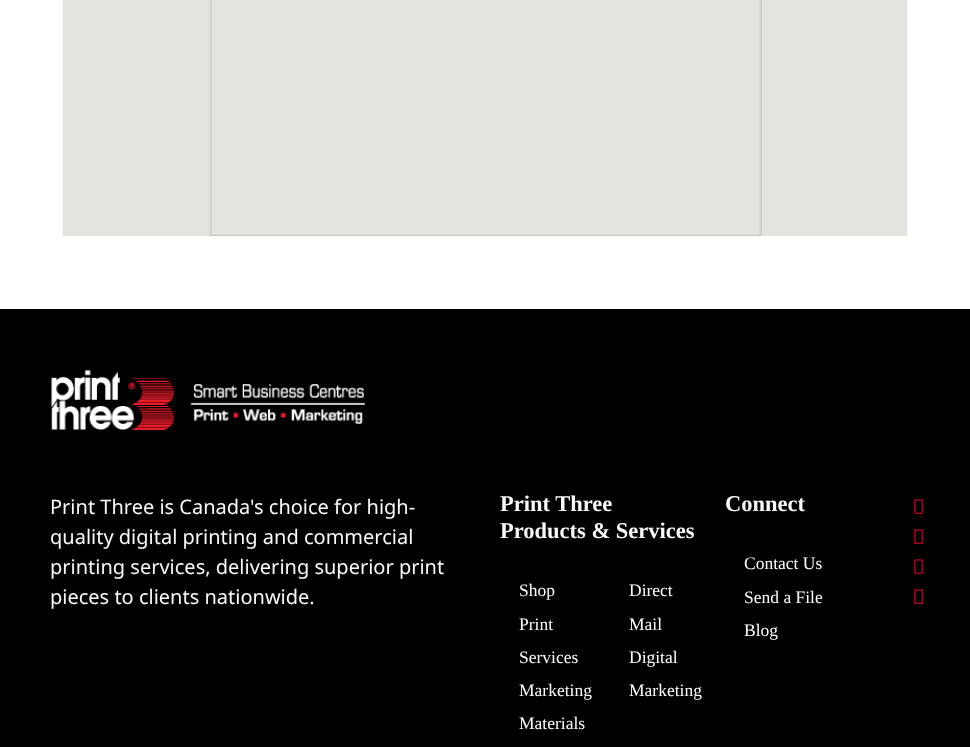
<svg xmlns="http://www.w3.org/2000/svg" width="970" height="747">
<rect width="100%" height="100%" fill="#fff"/>
<image x="62" y="0" width="846" height="236" href="media/1.png"/>
<rect y="309" width="970" height="438" fill="#000"/>
<image x="51" y="369" width="314" height="61" href="media/2.png"/>
<text x="50" y="514" style="font-family:Noto Sans;font-size:20px;fill:#f8f9fa">Print Three is Canada's choice for high-</text>
<text x="50" y="544" style="font-family:Noto Sans;font-size:20px;fill:#f8f9fa">quality digital printing and commercial</text>
<text x="50" y="574" style="font-family:Noto Sans;font-size:20px;fill:#f8f9fa">printing services, delivering superior print</text>
<text x="50" y="604" style="font-family:Noto Sans;font-size:20px;fill:#f8f9fa">pieces to clients nationwide.</text>
<text x="500" y="511" style="font-family:Liberation Serif;font-size:22.5px;font-weight:bold;fill:#f8f9fa">Print Three</text>
<text x="500" y="538" style="font-family:Liberation Serif;font-size:22.5px;font-weight:bold;fill:#f8f9fa">Products &amp; Services</text>
<text x="519" y="596" style="font-family:Liberation Serif;font-size:17.5px;fill:#fff">Shop</text>
<text x="519" y="630" style="font-family:Liberation Serif;font-size:17.5px;fill:#fff">Print</text>
<text x="519" y="663" style="font-family:Liberation Serif;font-size:17.5px;fill:#fff">Services</text>
<text x="519" y="696" style="font-family:Liberation Serif;font-size:17.5px;fill:#fff">Marketing</text>
<text x="519" y="729" style="font-family:Liberation Serif;font-size:17.5px;fill:#fff">Materials</text>
<text x="629" y="596" style="font-family:Liberation Serif;font-size:17.5px;fill:#fff">Direct</text>
<text x="629" y="630" style="font-family:Liberation Serif;font-size:17.5px;fill:#fff">Mail</text>
<text x="629" y="663" style="font-family:Liberation Serif;font-size:17.5px;fill:#fff">Digital</text>
<text x="629" y="696" style="font-family:Liberation Serif;font-size:17.5px;fill:#fff">Marketing</text>
<text x="725" y="511" style="font-family:Liberation Serif;font-size:22.5px;font-weight:bold;fill:#f8f9fa">Connect</text>
<text x="744" y="569" style="font-family:Liberation Serif;font-size:17.5px;fill:#fff">Contact Us</text>
<text x="744" y="603" style="font-family:Liberation Serif;font-size:17.5px;fill:#fff">Send a File</text>
<text x="744" y="636" style="font-family:Liberation Serif;font-size:17.5px;fill:#fff">Blog</text>
<image x="914" y="499" width="9" height="15" href="media/3.png"/>
<image x="914" y="529" width="9" height="15" href="media/3.png"/>
<image x="914" y="559" width="9" height="15" href="media/3.png"/>
<image x="914" y="589" width="9" height="15" href="media/3.png"/>
</svg>
